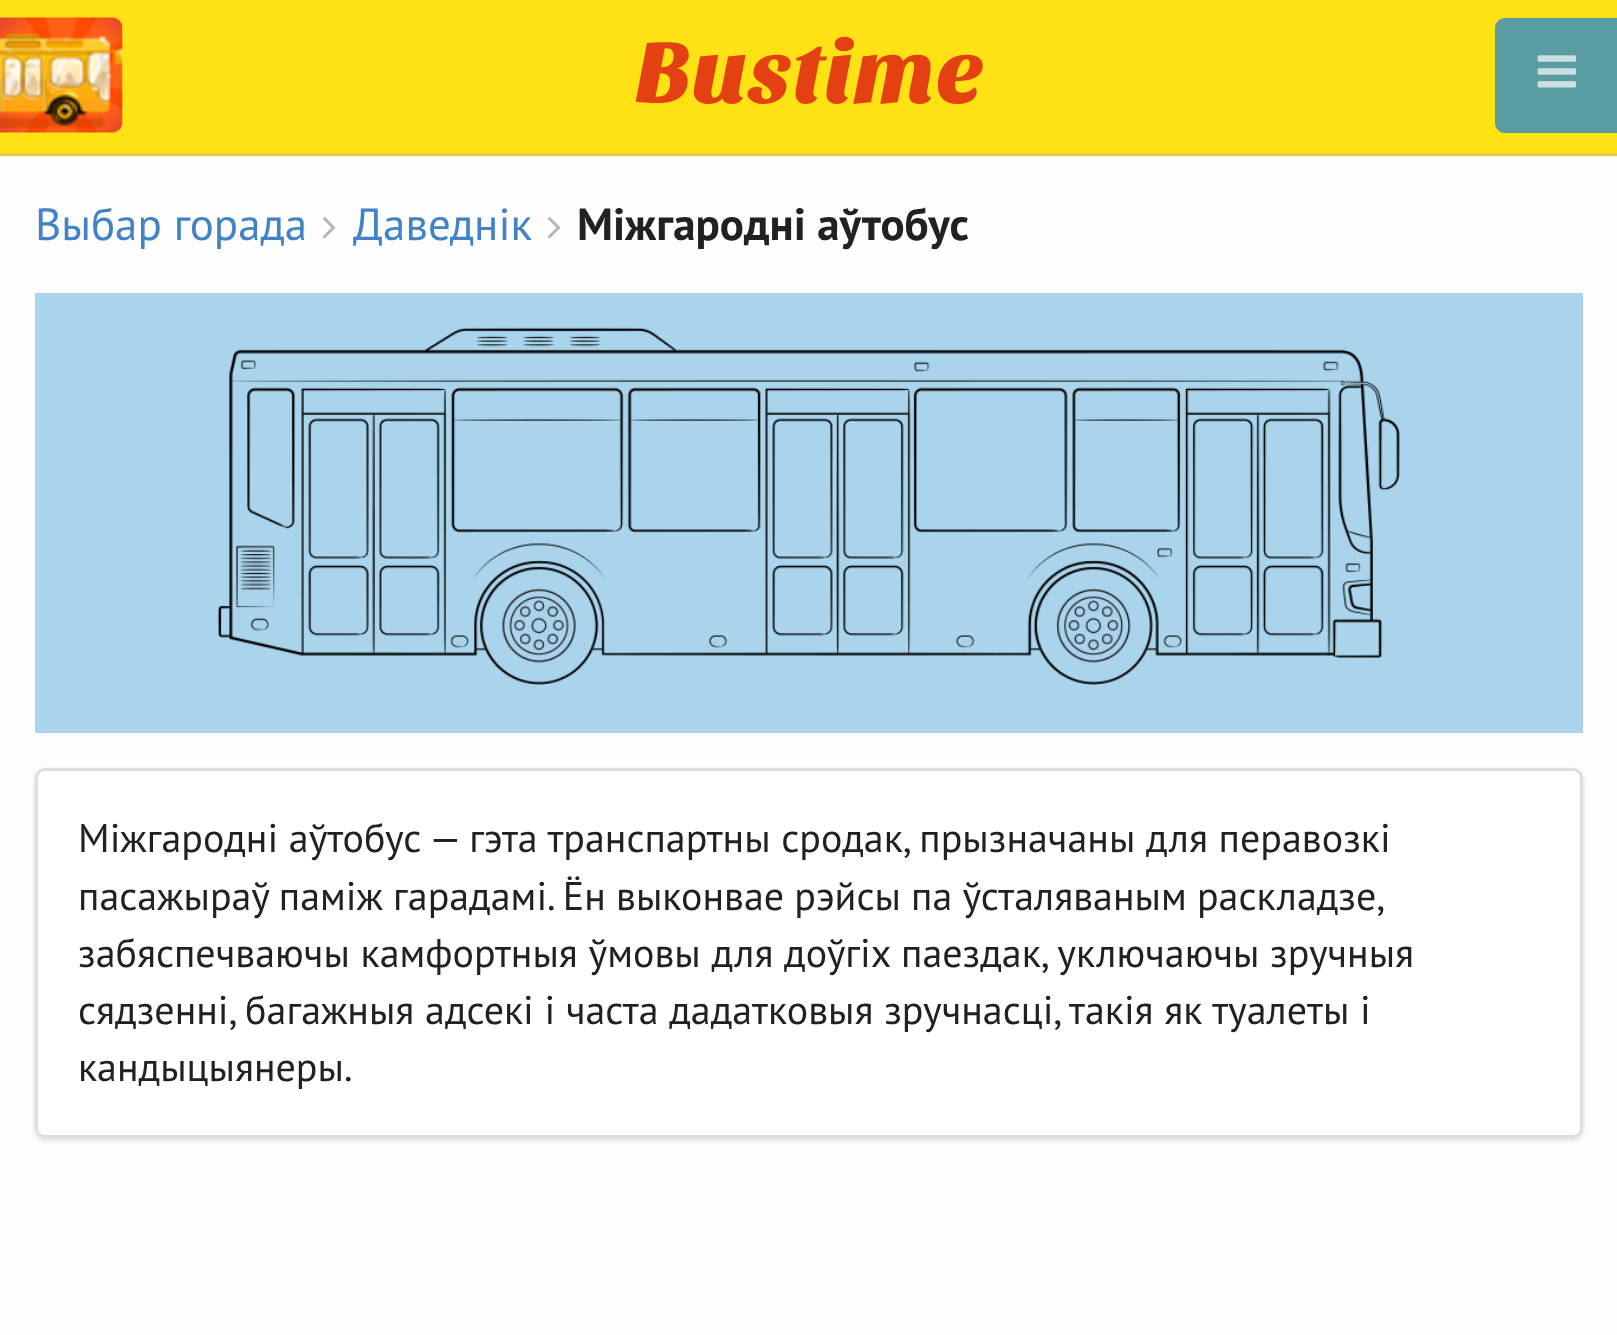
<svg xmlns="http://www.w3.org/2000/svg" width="1617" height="1335">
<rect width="100%" height="100%" fill="#fdfdfd"/>
<rect width="1617" height="153" fill="#ffe216"/>
<image x="0" y="17" width="123" height="116" href="media/1.png"/>
<path d="M1505 18h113v115h-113c-5.5 0-10-4.5-10-10v-95c0-5.5 4.5-10 10-10z" fill="#599ca2"/>
<image x="1537" y="55" width="40" height="33" href="media/2.png"/>
<rect y="153" width="1617" height="3" fill="#ecc745"/>
<image x="635" y="36" width="348" height="68" href="media/3.png"/>
<text x="35" y="240" style="font-family:PT Sans;font-size:45px;fill:#4183c4">Выбар горада</text>
<image x="322" y="217" width="14" height="22" href="media/4.png"/>
<text x="353" y="240" style="font-family:PT Sans;font-size:45px;fill:#4183c4">Даведнік</text>
<image x="547" y="217" width="14" height="22" href="media/4.png"/>
<text x="577" y="240" style="font-family:PT Sans;font-size:45px;font-weight:bold;fill:#212121">Міжгародні аўтобус</text>
<rect x="35" y="293" width="1548" height="440" fill="#aad4eb"/>
<image x="217" y="327" width="1183" height="358" href="media/5.png"/>
<rect x="35" y="770" width="1548" height="370" rx="10" fill="#22242626" filter="blur(2.5px)"/>
<rect x="35" y="768" width="1548" height="370" rx="10" fill="#fff"/>
<rect x="36.5" y="769.5" width="1545" height="367" rx="8.5" fill="none" stroke="#22242626" stroke-width="3"/>
<text x="78" y="852" style="font-family:PT Sans;font-size:40px;fill:#212121">Міжгародні аўтобус — гэта транспартны сродак, прызначаны для перавозкі</text>
<text x="78" y="910" word-spacing="-0.5" style="font-family:PT Sans;font-size:40px;fill:#212121">пасажыраў паміж гарадамі. Ён выконвае рэйсы па ўсталяваным раскладзе,</text>
<text x="78" y="967" style="font-family:PT Sans;font-size:40px;fill:#212121">забяспечваючы камфортныя ўмовы для доўгіх паездак, уключаючы зручныя</text>
<text x="78" y="1024" style="font-family:PT Sans;font-size:40px;fill:#212121">сядзенні, багажныя адсекі і часта дадатковыя зручнасці, такія як туалеты і</text>
<text x="78" y="1081" style="font-family:PT Sans;font-size:40px;fill:#212121">кандыцыянеры.</text>
</svg>
